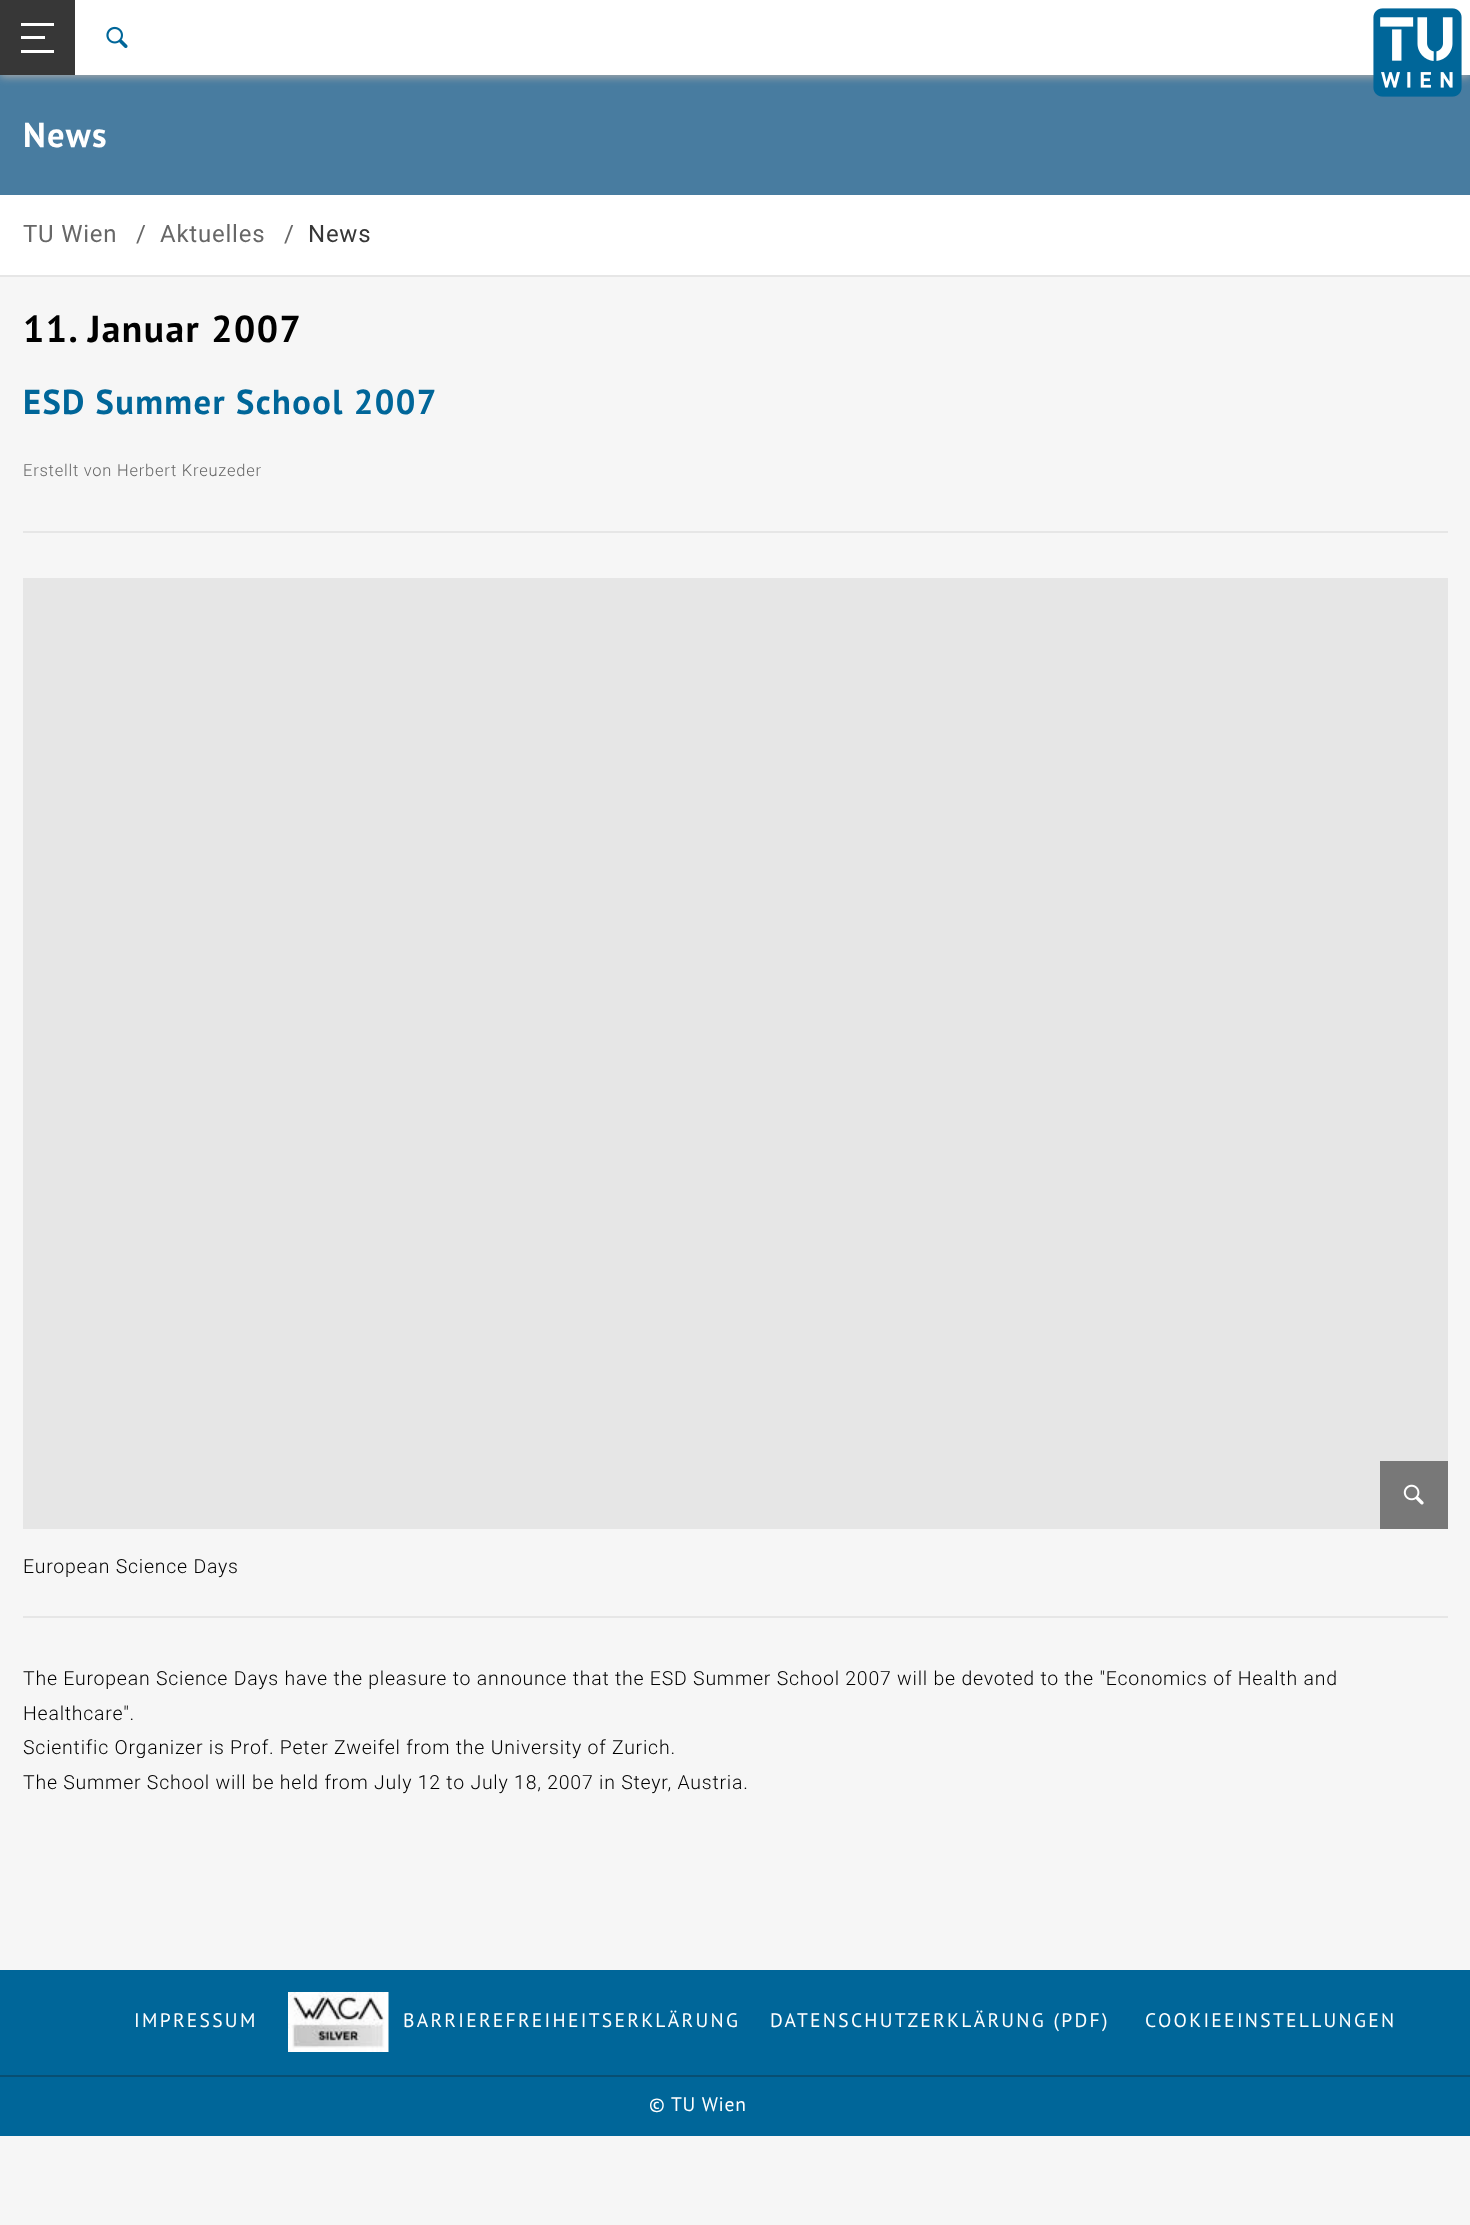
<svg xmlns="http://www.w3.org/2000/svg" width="1470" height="2225">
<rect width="100%" height="100%" fill="#f6f6f6"/>
<rect y="75" width="1470" height="120" fill="#487ca0"/>
<rect y="2" width="1470" height="75" fill="#aaa" filter="blur(4px)"/>
<rect x="75" width="1395" height="75" fill="#fff"/>
<rect width="75" height="75" fill="#373737"/>
<rect x="21" y="23" width="33" height="3" fill="#fff"/>
<rect x="21" y="36" width="24" height="3" fill="#fff"/>
<rect x="21" y="50" width="33" height="3" fill="#fff"/>
<image x="106" y="26" width="22" height="22" href="media/1.png"/>
<image x="1373" y="8" width="89" height="89" href="media/2.png"/>
<text x="23" y="147" style="font-family:PT Sans;font-size:34.5px;font-weight:bold;letter-spacing:1.4px;fill:#fff">News</text>
<rect y="195" width="1470" height="80" fill="#fff"/>
<rect y="275" width="1470" height="2" fill="#e6e6e6"/>
<text x="23" y="242" style="font-family:Roboto;font-size:24px;letter-spacing:0.77px;fill:#676767">TU Wien</text>
<text x="136" y="242" style="font-family:Roboto;font-size:24px;letter-spacing:0.77px;fill:#676767">/</text>
<text x="160" y="242" style="font-family:Roboto;font-size:24px;letter-spacing:0.77px;fill:#676767">Aktuelles</text>
<text x="284" y="242" style="font-family:Roboto;font-size:24px;letter-spacing:0.77px;fill:#676767">/</text>
<text x="308" y="242" style="font-family:Roboto;font-size:24px;letter-spacing:0.77px;fill:#373737">News</text>
<text x="23" y="342" style="font-family:PT Sans;font-size:37.5px;font-weight:bold;letter-spacing:1.5px;fill:#000">11. Januar 2007</text>
<text x="23" y="414" style="font-family:PT Sans;font-size:34.5px;font-weight:bold;letter-spacing:1.4px;fill:#069">ESD Summer School 2007</text>
<text x="23" y="476" style="font-family:Roboto;font-size:16.5px;font-weight:300;letter-spacing:0.77px;fill:#676767">Erstellt von Herbert Kreuzeder</text>
<rect x="23" y="531" width="1425" height="2" fill="#e6e6e6"/>
<rect x="23" y="1616" width="1425" height="2" fill="#e6e6e6"/>
<rect x="23" y="578" width="1425" height="951" fill="#e6e6e6"/>
<rect x="1380" y="1461" width="68" height="68" fill="#787878"/>
<image x="1403" y="1484" width="21" height="21" href="media/3.png"/>
<text x="23" y="1573" style="font-family:Roboto;font-size:19.5px;font-weight:300;letter-spacing:0.77px;fill:#000">European Science Days</text>
<text x="23" y="1685" style="font-family:Roboto;font-size:19.5px;font-weight:300;letter-spacing:0.77px;fill:#000">The European Science Days have the pleasure to announce that the ESD Summer School 2007 will be devoted to the "Economics of Health and</text>
<text x="23" y="1720" style="font-family:Roboto;font-size:19.5px;font-weight:300;letter-spacing:0.77px;fill:#000">Healthcare".</text>
<text x="23" y="1754" style="font-family:Roboto;font-size:19.5px;font-weight:300;letter-spacing:0.77px;fill:#000">Scientific Organizer is Prof. Peter Zweifel from the University of Zurich.</text>
<text x="23" y="1789" style="font-family:Roboto;font-size:19.5px;font-weight:300;letter-spacing:0.77px;fill:#000">The Summer School will be held from July 12 to July 18, 2007 in Steyr, Austria.</text>
<rect y="1970" width="1470" height="166" fill="#069"/>
<rect y="2075" width="1470" height="2" fill="#084f72"/>
<text x="134" y="2027" style="font-family:PT Sans;font-size:19.5px;letter-spacing:2.3px;fill:#fff">IMPRESSUM</text>
<image x="288" y="1992" width="101" height="60" href="media/4.png"/>
<text x="403" y="2027" style="font-family:PT Sans;font-size:19.5px;letter-spacing:2.3px;fill:#fff">BARRIEREFREIHEITSERKLÄRUNG</text>
<text x="770" y="2027" style="font-family:PT Sans;font-size:19.5px;letter-spacing:2.3px;fill:#fff">DATENSCHUTZERKLÄRUNG (PDF)</text>
<text x="1145" y="2027" style="font-family:PT Sans;font-size:19.5px;letter-spacing:2.3px;fill:#fff">COOKIEEINSTELLUNGEN</text>
<text x="649" y="2111" style="font-family:PT Sans;font-size:19.5px;letter-spacing:0.77px;fill:#fff">©</text>
<text x="671" y="2111" style="font-family:PT Sans;font-size:19.5px;letter-spacing:0.77px;fill:#fff">TU Wien</text>
</svg>
